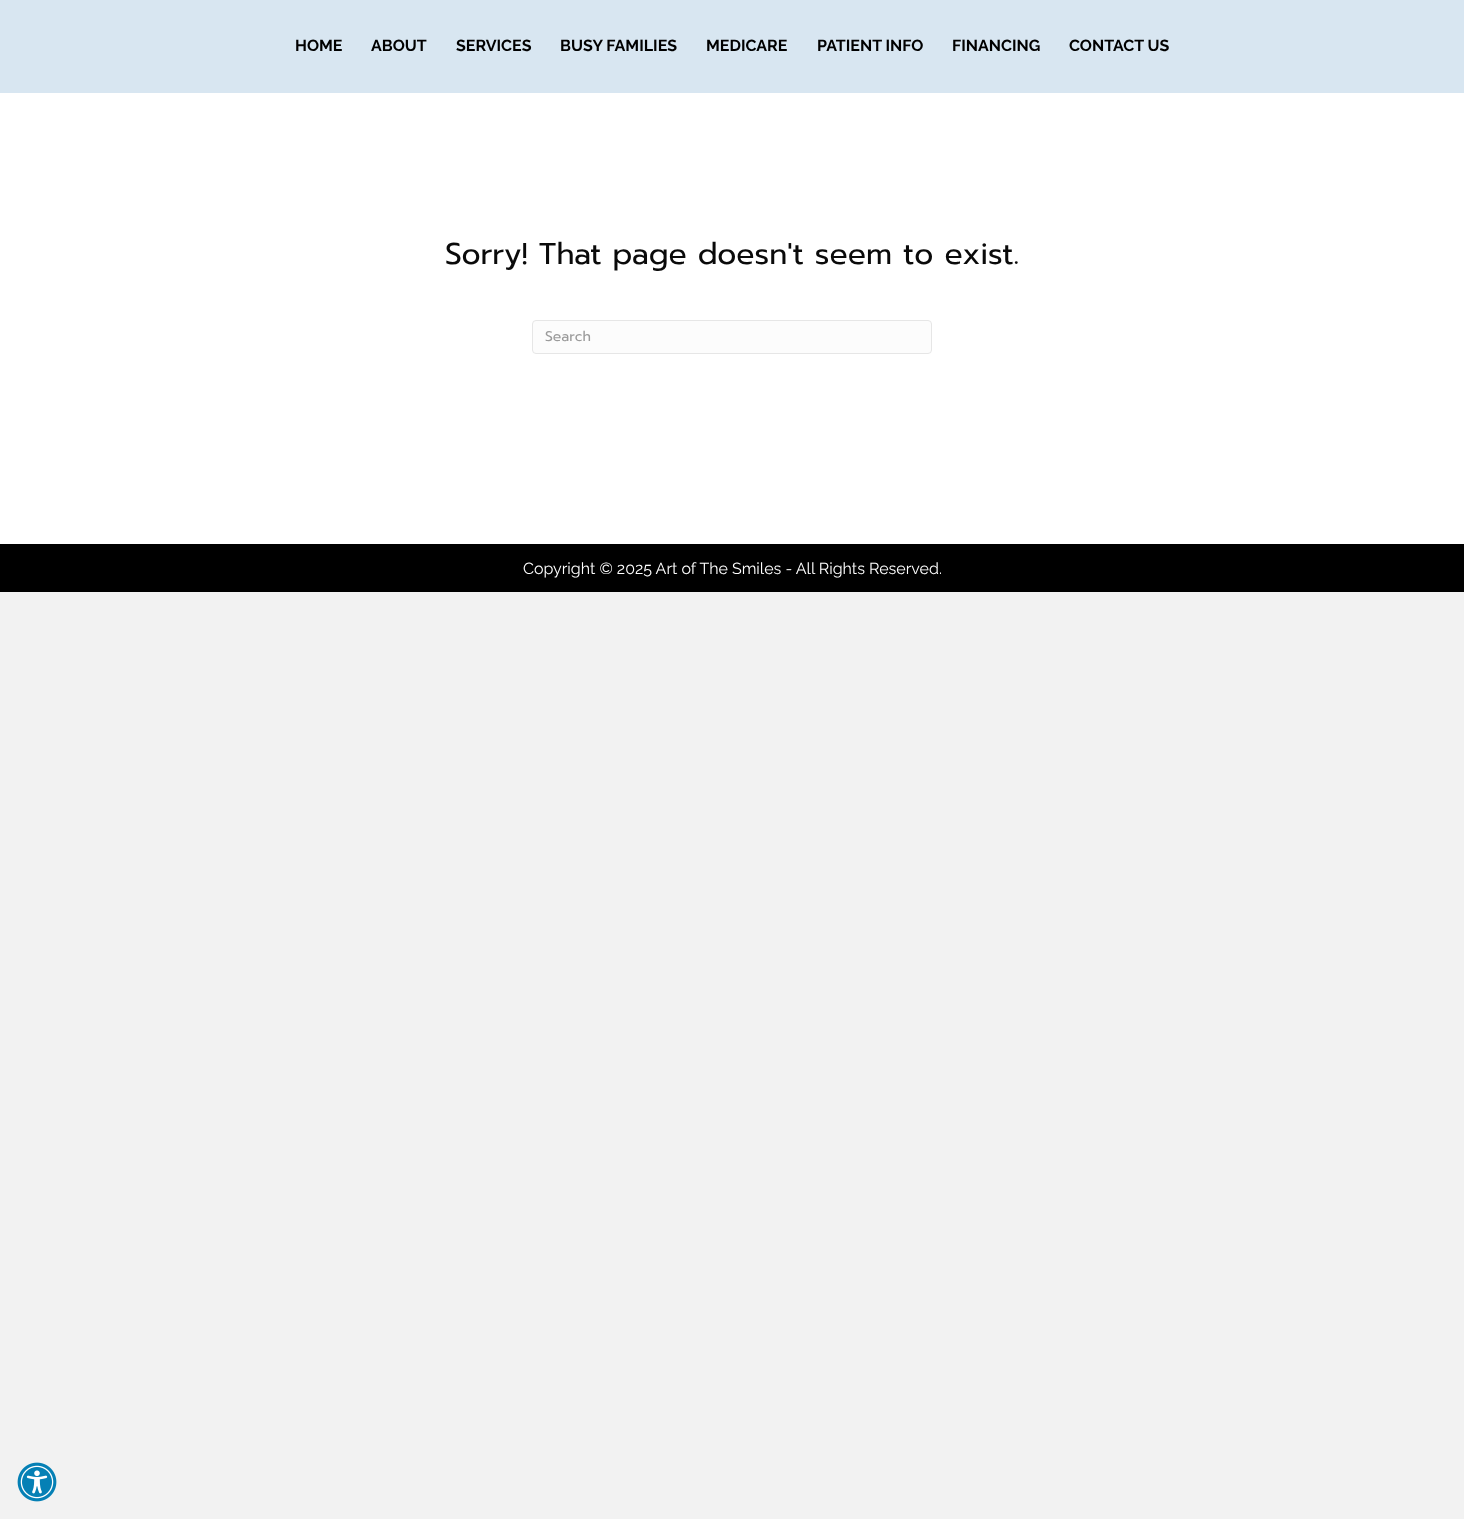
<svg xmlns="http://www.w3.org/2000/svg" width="1464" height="1519">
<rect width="100%" height="100%" fill="#f2f2f2"/>
<rect width="1464" height="93" fill="#d8e6f1"/>
<text x="295" y="51" style="font-family:Raleway;font-size:16px;font-weight:bold;fill:#000">HOME</text>
<text x="371" y="51" style="font-family:Raleway;font-size:16px;font-weight:bold;fill:#000">ABOUT</text>
<text x="456" y="51" style="font-family:Raleway;font-size:16px;font-weight:bold;fill:#000">SERVICES</text>
<text x="560" y="51" style="font-family:Raleway;font-size:16px;font-weight:bold;fill:#000">BUSY FAMILIES</text>
<text x="706" y="51" style="font-family:Raleway;font-size:16px;font-weight:bold;fill:#000">MEDICARE</text>
<text x="817" y="51" style="font-family:Raleway;font-size:16px;font-weight:bold;fill:#000">PATIENT INFO</text>
<text x="952" y="51" style="font-family:Raleway;font-size:16px;font-weight:bold;fill:#000">FINANCING</text>
<text x="1069" y="51" style="font-family:Raleway;font-size:16px;font-weight:bold;fill:#000">CONTACT US</text>
<rect y="93" width="1464" height="451" fill="#fff"/>
<text x="445" y="264" style="font-family:Prompt;font-size:30px;fill:#0a0a0a">Sorry! That page doesn't seem to exist.</text>
<rect x="532.5" y="320.5" width="399" height="33" rx="3.5" fill="#fcfcfc" stroke="#e6e6e6"/>
<text x="545" y="341" style="font-family:Prompt;font-size:14px;fill:#9b9b9b">Search</text>
<rect y="544" width="1464" height="48" fill="#000"/>
<text x="523" y="574" style="font-family:Raleway;font-size:16px;fill:#fff">Copyright © 2025 Art of The Smiles - All Rights Reserved.</text>
<path d="M37 1463.5c-10 0-18.5 8.5-18.5 18.5c0 10 8.5 18.5 18.5 18.5c10 0 18.5-8.5 18.5-18.5c0-10-8.5-18.5-18.5-18.5z" fill="#fff"/>
<image x="17" y="1462" width="40" height="40" href="media/1.png"/>
</svg>
